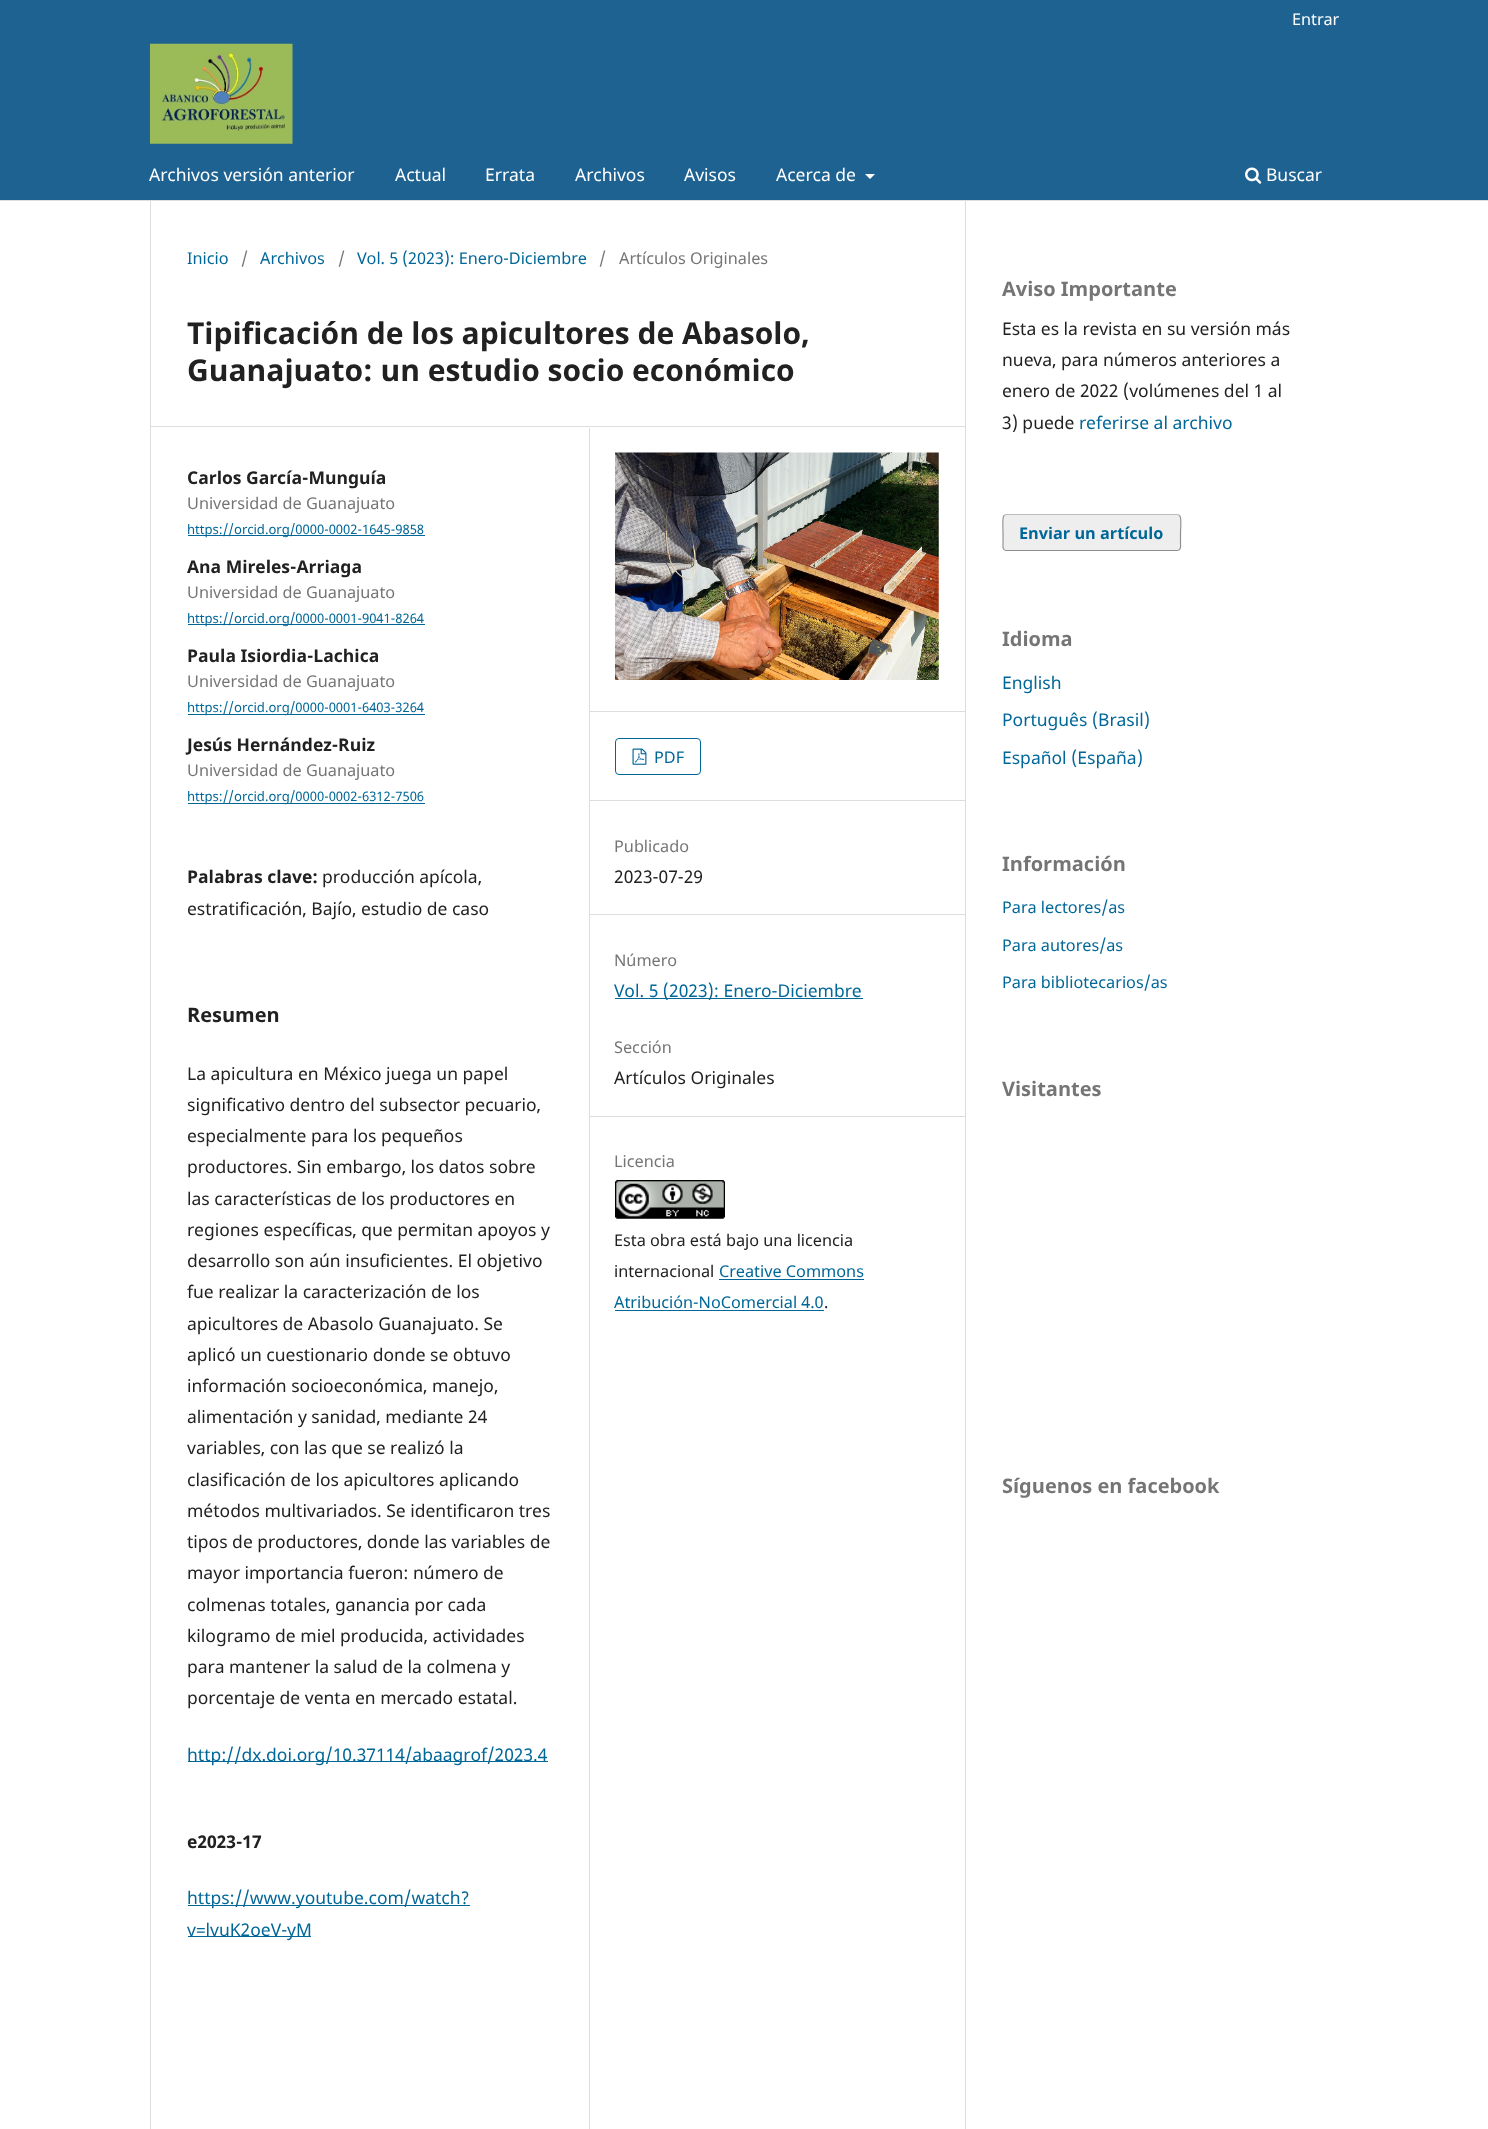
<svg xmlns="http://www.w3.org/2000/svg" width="1488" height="2129">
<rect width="100%" height="100%" fill="#fff"/>
<rect width="1488" height="200" fill="#1e6292"/>
<rect y="200" width="1488" height="1" fill="#ddd"/>
<text x="1292" y="25" style="font-family:Noto Sans;font-size:16.25px;fill:#fff">Entrar</text>
<text x="149" y="181" style="font-family:Noto Sans;font-size:17.5px;fill:#fff">Archivos versión anterior</text>
<text x="395" y="181" style="font-family:Noto Sans;font-size:17.5px;fill:#fff">Actual</text>
<text x="485" y="181" style="font-family:Noto Sans;font-size:17.5px;fill:#fff">Errata</text>
<text x="575" y="181" style="font-family:Noto Sans;font-size:17.5px;fill:#fff">Archivos</text>
<text x="684" y="181" style="font-family:Noto Sans;font-size:17.5px;fill:#fff">Avisos</text>
<text x="776" y="181" style="font-family:Noto Sans;font-size:17.5px;fill:#fff">Acerca de</text>
<path d="M865 174h10l-5 5z" fill="#fff"/>
<image x="1245" y="167" width="17" height="17" href="media/1.png"/>
<text x="1266" y="181" style="font-family:Noto Sans;font-size:17.5px;fill:#fff">Buscar</text>
<image x="150" y="43" width="143" height="101" href="media/2.png"/>
<rect x="150" y="426" width="815" height="1" fill="#ddd"/>
<rect x="150" y="201" width="1" height="1928" fill="#ddd"/>
<text x="187" y="264" style="font-family:Noto Sans;font-size:16.25px;fill:#006798">Inicio</text>
<text x="241" y="264" style="font-family:Noto Sans;font-size:16.25px;fill:#757575">/</text>
<text x="260" y="264" style="font-family:Noto Sans;font-size:16.25px;fill:#006798">Archivos</text>
<text x="338" y="264" style="font-family:Noto Sans;font-size:16.25px;fill:#757575">/</text>
<text x="357" y="264" style="font-family:Noto Sans;font-size:16.25px;fill:#006798">Vol. 5 (2023): Enero-Diciembre</text>
<text x="599" y="264" style="font-family:Noto Sans;font-size:16.25px;fill:#757575">/</text>
<text x="619" y="264" style="font-family:Noto Sans;font-size:16.25px;fill:#757575">Artículos Originales</text>
<text x="187" y="344" style="font-family:Noto Sans;font-size:30px;font-weight:bold;fill:#212121">Tipificación de los apicultores de Abasolo,</text>
<text x="187" y="381" style="font-family:Noto Sans;font-size:30px;font-weight:bold;fill:#212121">Guanajuato: un estudio socio económico</text>
<rect x="589" y="428" width="1" height="1701" fill="#ddd"/>
<text x="187" y="484" style="font-family:Noto Sans;font-size:17.5px;font-weight:bold;fill:#212121">Carlos García-Munguía</text>
<text x="187" y="509" style="font-family:Noto Sans;font-size:16.25px;fill:#757575">Universidad de Guanajuato</text>
<rect x="188" y="535" width="237" height="1" fill="#006798"/>
<text x="187" y="534" style="font-family:Noto Sans;font-size:13.1px;fill:#006798">https://orcid.org/0000-0002-1645-9858</text>
<text x="187" y="573" style="font-family:Noto Sans;font-size:17.5px;font-weight:bold;fill:#212121">Ana Mireles-Arriaga</text>
<text x="187" y="598" style="font-family:Noto Sans;font-size:16.25px;fill:#757575">Universidad de Guanajuato</text>
<rect x="188" y="624" width="237" height="1" fill="#006798"/>
<text x="187" y="623" style="font-family:Noto Sans;font-size:13.1px;fill:#006798">https://orcid.org/0000-0001-9041-8264</text>
<text x="187" y="662" style="font-family:Noto Sans;font-size:17.5px;font-weight:bold;fill:#212121">Paula Isiordia-Lachica</text>
<text x="187" y="687" style="font-family:Noto Sans;font-size:16.25px;fill:#757575">Universidad de Guanajuato</text>
<rect x="188" y="714" width="237" height="1" fill="#006798"/>
<text x="187" y="712" style="font-family:Noto Sans;font-size:13.1px;fill:#006798">https://orcid.org/0000-0001-6403-3264</text>
<text x="187" y="751" style="font-family:Noto Sans;font-size:17.5px;font-weight:bold;fill:#212121">Jesús Hernández-Ruiz</text>
<text x="187" y="776" style="font-family:Noto Sans;font-size:16.25px;fill:#757575">Universidad de Guanajuato</text>
<rect x="188" y="803" width="237" height="1" fill="#006798"/>
<text x="187" y="801" style="font-family:Noto Sans;font-size:13.1px;fill:#006798">https://orcid.org/0000-0002-6312-7506</text>
<text x="187" y="883" style="font-family:Noto Sans;font-size:17.5px;font-weight:bold;fill:#212121">Palabras clave:</text>
<text x="322" y="883" style="font-family:Noto Sans;font-size:17.5px;fill:#212121">producción apícola,</text>
<text x="187" y="915" style="font-family:Noto Sans;font-size:17.5px;fill:#212121">estratificación, Bajío, estudio de caso</text>
<text x="187" y="1022" style="font-family:Noto Sans;font-size:20px;font-weight:bold;fill:#212121">Resumen</text>
<text x="187" y="1080" style="font-family:Noto Sans;font-size:17.5px;fill:#212121">La apicultura en México juega un papel</text>
<text x="187" y="1111" style="font-family:Noto Sans;font-size:17.5px;fill:#212121">significativo dentro del subsector pecuario,</text>
<text x="187" y="1142" style="font-family:Noto Sans;font-size:17.5px;fill:#212121">especialmente para los pequeños</text>
<text x="187" y="1173" style="font-family:Noto Sans;font-size:17.5px;fill:#212121">productores. Sin embargo, los datos sobre</text>
<text x="187" y="1205" style="font-family:Noto Sans;font-size:17.5px;fill:#212121">las características de los productores en</text>
<text x="187" y="1236" style="font-family:Noto Sans;font-size:17.5px;fill:#212121">regiones específicas, que permitan apoyos y</text>
<text x="187" y="1267" style="font-family:Noto Sans;font-size:17.5px;fill:#212121">desarrollo son aún insuficientes. El objetivo</text>
<text x="187" y="1298" style="font-family:Noto Sans;font-size:17.5px;fill:#212121">fue realizar la caracterización de los</text>
<text x="187" y="1330" style="font-family:Noto Sans;font-size:17.5px;fill:#212121">apicultores de Abasolo Guanajuato. Se</text>
<text x="187" y="1361" style="font-family:Noto Sans;font-size:17.5px;fill:#212121">aplicó un cuestionario donde se obtuvo</text>
<text x="187" y="1392" style="font-family:Noto Sans;font-size:17.5px;fill:#212121">información socioeconómica, manejo,</text>
<text x="187" y="1423" style="font-family:Noto Sans;font-size:17.5px;fill:#212121">alimentación y sanidad, mediante 24</text>
<text x="187" y="1454" style="font-family:Noto Sans;font-size:17.5px;fill:#212121">variables, con las que se realizó la</text>
<text x="187" y="1486" style="font-family:Noto Sans;font-size:17.5px;fill:#212121">clasificación de los apicultores aplicando</text>
<text x="187" y="1517" style="font-family:Noto Sans;font-size:17.5px;fill:#212121">métodos multivariados. Se identificaron tres</text>
<text x="187" y="1548" style="font-family:Noto Sans;font-size:17.5px;fill:#212121">tipos de productores, donde las variables de</text>
<text x="187" y="1579" style="font-family:Noto Sans;font-size:17.5px;fill:#212121">mayor importancia fueron: número de</text>
<text x="187" y="1611" style="font-family:Noto Sans;font-size:17.5px;fill:#212121">colmenas totales, ganancia por cada</text>
<text x="187" y="1642" style="font-family:Noto Sans;font-size:17.5px;fill:#212121">kilogramo de miel producida, actividades</text>
<text x="187" y="1673" style="font-family:Noto Sans;font-size:17.5px;fill:#212121">para mantener la salud de la colmena y</text>
<text x="187" y="1704" style="font-family:Noto Sans;font-size:17.5px;fill:#212121">porcentaje de venta en mercado estatal.</text>
<rect x="188" y="1761" width="360" height="1" fill="#006798"/>
<text x="187" y="1761" style="font-family:Noto Sans;font-size:17.5px;fill:#006798">http://dx.doi.org/10.37114/abaagrof/2023.4</text>
<text x="187" y="1848" style="font-family:Noto Sans;font-size:17.5px;font-weight:bold;fill:#212121">e2023-17</text>
<rect x="188" y="1905" width="282" height="1" fill="#006798"/>
<text x="187" y="1904" style="font-family:Noto Sans;font-size:17.5px;fill:#006798">https://www.youtube.com/watch?</text>
<rect x="188" y="1936" width="123" height="1" fill="#006798"/>
<text x="187" y="1936" style="font-family:Noto Sans;font-size:17.5px;fill:#006798">v=lvuK2oeV-yM</text>
<rect x="590" y="711" width="375" height="1" fill="#ddd"/>
<image x="615" y="452" width="324" height="228" href="media/3.png"/>
<rect x="590" y="800" width="375" height="1" fill="#ddd"/>
<rect x="615.5" y="738.5" width="85" height="36" rx="3.5" fill="none" stroke="#006798"/>
<image x="632" y="748" width="15" height="17" href="media/4.png"/>
<text x="654" y="763" style="font-family:Noto Sans;font-size:16.25px;fill:#006798">PDF</text>
<rect x="590" y="914" width="375" height="1" fill="#ddd"/>
<text x="614" y="852" style="font-family:Noto Sans;font-size:16.25px;fill:#757575">Publicado</text>
<text x="614" y="883" style="font-family:Noto Sans;font-size:17.5px;fill:#212121">2023-07-29</text>
<rect x="590" y="1116" width="375" height="1" fill="#ddd"/>
<text x="614" y="966" style="font-family:Noto Sans;font-size:16.25px;fill:#757575">Número</text>
<rect x="615" y="998" width="248" height="1" fill="#006798"/>
<text x="614" y="997" style="font-family:Noto Sans;font-size:17.5px;fill:#006798">Vol. 5 (2023): Enero-Diciembre</text>
<text x="614" y="1053" style="font-family:Noto Sans;font-size:16.25px;fill:#757575">Sección</text>
<text x="614" y="1084" style="font-family:Noto Sans;font-size:17.5px;fill:#212121">Artículos Originales</text>
<text x="614" y="1167" style="font-family:Noto Sans;font-size:16.25px;fill:#757575">Licencia</text>
<image x="615" y="1180" width="110" height="39" href="media/5.png"/>
<text x="614" y="1246" style="font-family:Noto Sans;font-size:16.25px;fill:#212121">Esta obra está bajo una licencia</text>
<text x="614" y="1277" style="font-family:Noto Sans;font-size:16.25px;fill:#212121">internacional</text>
<text x="719" y="1277" style="font-family:Noto Sans;font-size:16.25px;fill:#006798">Creative Commons</text>
<rect x="719" y="1279" width="145" height="1" fill="#006798"/>
<text x="614" y="1308" style="font-family:Noto Sans;font-size:16.25px;fill:#006798">Atribución-NoComercial 4.0</text>
<rect x="615" y="1310" width="209" height="1" fill="#006798"/>
<text x="824" y="1308" style="font-family:Noto Sans;font-size:16.25px;fill:#212121">.</text>
<rect x="965" y="201" width="1" height="1928" fill="#ddd"/>
<text x="1002" y="296" style="font-family:Noto Sans;font-size:20px;font-weight:bold;fill:#757575">Aviso Importante</text>
<text x="1002" y="335" style="font-family:Noto Sans;font-size:17.5px;fill:#212121">Esta es la revista en su versión más</text>
<text x="1002" y="366" style="font-family:Noto Sans;font-size:17.5px;fill:#212121">nueva, para números anteriores a</text>
<text x="1002" y="397" style="font-family:Noto Sans;font-size:17.5px;fill:#212121">enero de 2022 (volúmenes del 1 al</text>
<text x="1002" y="429" style="font-family:Noto Sans;font-size:17.5px;fill:#212121">3) puede</text>
<text x="1079" y="429" style="font-family:Noto Sans;font-size:17.5px;fill:#006798">referirse al archivo</text>
<rect x="1003" y="514" width="178" height="37" rx="4" fill="#eee"/>
<path d="M1004 515.5l2-1h171.5l2 1" fill="none" stroke="#bbb" stroke-width="1.2"/>
<path d="M1179.5 515.5c2.5 2 1 14 1 17v10c0 2.5 1 8-3 8h-171.5c-4 0-3-5.5-3-8v-10c0-3-1-15 1-17" fill="none" stroke="#00000066" stroke-width="1.2"/>
<text x="1019" y="539" style="font-family:Noto Sans;font-size:16.25px;font-weight:bold;fill:#006798">Enviar un artículo</text>
<text x="1002" y="646" style="font-family:Noto Sans;font-size:20px;font-weight:bold;fill:#757575">Idioma</text>
<text x="1002" y="689" style="font-family:Noto Sans;font-size:17.5px;fill:#006798">English</text>
<text x="1002" y="726" style="font-family:Noto Sans;font-size:17.5px;fill:#006798">Português (Brasil)</text>
<text x="1002" y="764" style="font-family:Noto Sans;font-size:17.5px;fill:#006798">Español (España)</text>
<text x="1002" y="871" style="font-family:Noto Sans;font-size:20px;font-weight:bold;fill:#757575">Información</text>
<text x="1002" y="913" style="font-family:Noto Sans;font-size:16.25px;fill:#006798">Para lectores/as</text>
<text x="1002" y="951" style="font-family:Noto Sans;font-size:16.25px;fill:#006798">Para autores/as</text>
<text x="1002" y="988" style="font-family:Noto Sans;font-size:16.25px;fill:#006798">Para bibliotecarios/as</text>
<text x="1002" y="1096" style="font-family:Noto Sans;font-size:20px;font-weight:bold;fill:#757575">Visitantes</text>
<text x="1002" y="1493" style="font-family:Noto Sans;font-size:20px;font-weight:bold;fill:#757575">Síguenos en facebook</text>
</svg>
